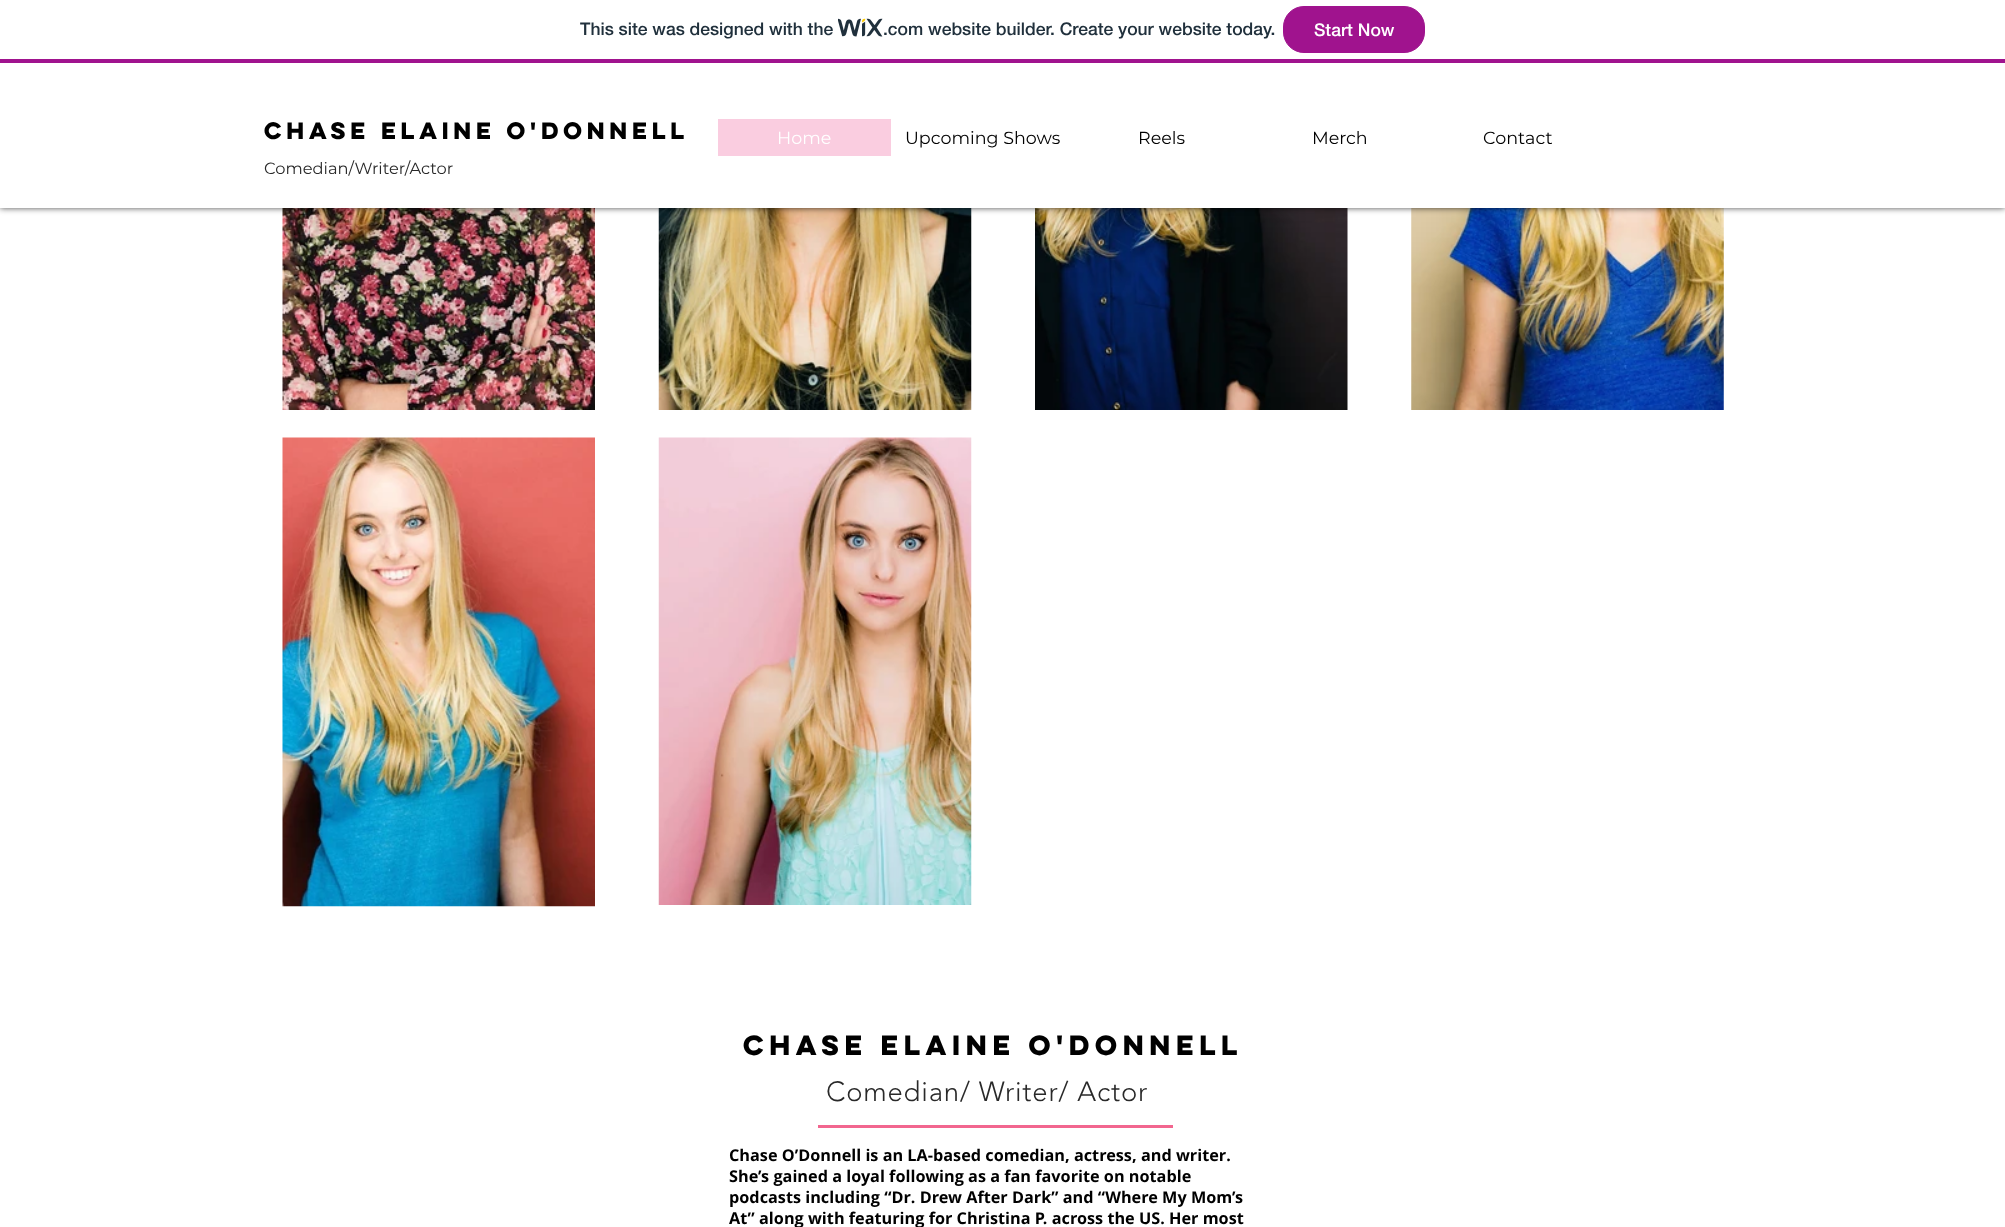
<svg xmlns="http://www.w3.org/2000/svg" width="2005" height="1227">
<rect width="100%" height="100%" fill="#fff"/>
<image x="282" y="208" width="313" height="202" href="media/2.png"/>
<image x="658" y="208" width="314" height="202" href="media/3.png"/>
<image x="1035" y="208" width="313" height="202" href="media/4.png"/>
<image x="1411" y="208" width="313" height="202" href="media/5.png"/>
<rect y="63" width="2005" height="145" fill="#000000b3" filter="blur(3px)"/>
<rect y="56" width="2005" height="3" fill="#fff"/>
<rect y="59" width="2005" height="4" fill="#a0138e"/>
<text x="580" y="35" style="font-family:'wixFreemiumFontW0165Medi';font-size:17.5px;font-weight:500;fill:#20303c">This site was designed with the</text>
<image x="838" y="18" width="45" height="19" href="media/1.png"/>
<text x="883" y="35" style="font-family:'wixFreemiumFontW0165Medi';font-size:17.5px;font-weight:500;fill:#20303c">.com website builder. Create your website today.</text>
<rect x="1283.5" y="6.5" width="141" height="46" rx="20.5" fill="#a0138e" stroke="#a0138e"/>
<text x="1314" y="36" style="font-family:'wixFreemiumFontW0165Medi';font-size:17.5px;font-weight:500;fill:#fff">Start Now</text>
<rect y="63" width="2005" height="145" fill="#fff"/>
<text x="264" y="139" style="font-family:'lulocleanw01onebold';font-size:21.25px;font-weight:bold;fill:#000">Chase Elaine O'Donnell</text>
<rect x="718" y="119" width="173" height="37" fill="#facde0"/>
<text x="777" y="144" style="font-family:Montserrat;font-size:17.5px;fill:#fff">Home</text>
<text x="905" y="144" style="font-family:Montserrat;font-size:17.5px;fill:#000">Upcoming Shows</text>
<text x="1138" y="144" style="font-family:Montserrat;font-size:17.5px;fill:#000">Reels</text>
<text x="1312" y="144" style="font-family:Montserrat;font-size:17.5px;fill:#000">Merch</text>
<text x="1483" y="144" style="font-family:Montserrat;font-size:17.5px;fill:#000">Contact</text>
<text x="264" y="174" style="font-family:Montserrat;font-size:16.25px;fill:#292929">Comedian/Writer/Actor</text>
<image x="282" y="437" width="313" height="470" href="media/6.png"/>
<image x="658" y="437" width="314" height="468" href="media/7.png"/>
<text x="743" y="1055" style="font-family:'lulocleanw01onebold';font-size:25px;font-weight:bold;fill:#000">Chase Elaine O'Donnell</text>
<text x="826" y="1101" style="font-family:'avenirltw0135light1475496';font-size:27.5px;font-weight:300;letter-spacing:0.8px;fill:#292929">Comedian/ Writer/ Actor</text>
<rect x="818" y="1125" width="355" height="3" fill="#f2668f"/>
<text x="729" y="1161" style="font-family:Open Sans;font-size:16.25px;font-weight:bold;fill:#000">Chase O’Donnell is an LA-based comedian, actress, and writer.</text>
<text x="729" y="1182" style="font-family:Open Sans;font-size:16.25px;font-weight:bold;fill:#000">She’s gained a loyal following as a fan favorite on notable</text>
<text x="729" y="1203" style="font-family:Open Sans;font-size:16.25px;font-weight:bold;fill:#000">podcasts including “Dr. Drew After Dark” and “Where My Mom’s</text>
<text x="729" y="1224" style="font-family:Open Sans;font-size:16.25px;font-weight:bold;fill:#000">At” along with featuring for Christina P. across the US. Her most</text>
</svg>
